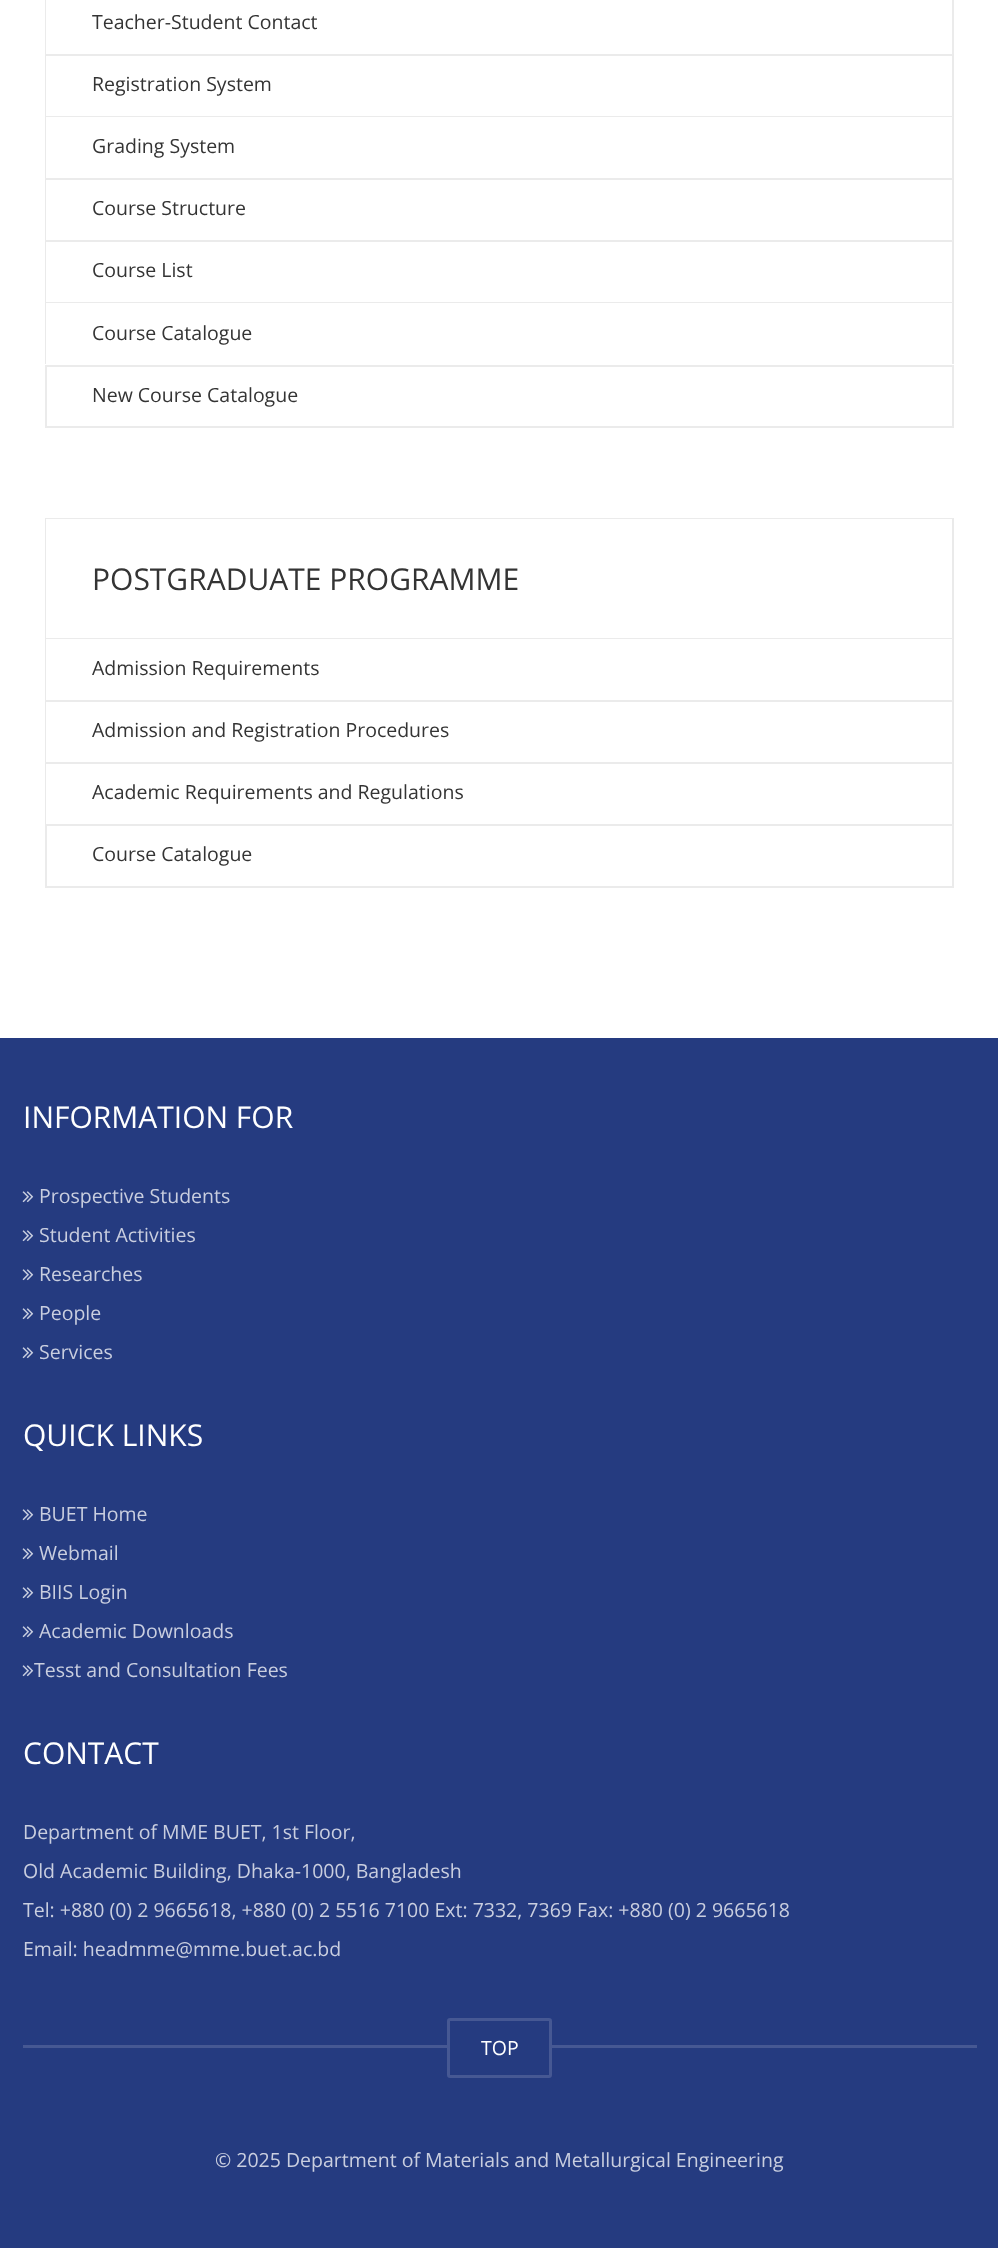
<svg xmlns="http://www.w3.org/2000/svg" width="998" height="2248">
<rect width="100%" height="100%" fill="#fff"/>
<path d="M954-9v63h-2v-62z" fill="#ebebeb"/>
<path d="M45 54v-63l1 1v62z" fill="#ebebeb"/>
<text x="92" y="29" style="font-family:Open Sans;font-size:19.5px;fill:#343434">Teacher-Student Contact</text>
<path d="M45 54h909l-2 2h-906z" fill="#ebebeb"/>
<path d="M954 54v62h-2v-60z" fill="#3434341a"/>
<path d="M45 116v-62l1 2v60z" fill="#3434341a"/>
<text x="92" y="91" style="font-family:Open Sans;font-size:19.5px;fill:#343434">Registration System</text>
<path d="M45 116h909l-2 1h-906z" fill="#ebebeb"/>
<path d="M954 116v62h-2v-61z" fill="#3434341a"/>
<path d="M45 178v-62l1 1v61z" fill="#3434341a"/>
<text x="92" y="153" style="font-family:Open Sans;font-size:19.5px;fill:#343434">Grading System</text>
<path d="M45 178h909l-2 2h-906z" fill="#ebebeb"/>
<path d="M954 178v62h-2v-60z" fill="#3434341a"/>
<path d="M45 240v-62l1 2v60z" fill="#3434341a"/>
<text x="92" y="215" style="font-family:Open Sans;font-size:19.5px;fill:#343434">Course Structure</text>
<path d="M45 240h909l-2 2h-906z" fill="#ebebeb"/>
<path d="M954 240v62h-2v-60z" fill="#3434341a"/>
<path d="M45 302v-62l1 2v60z" fill="#3434341a"/>
<text x="92" y="277" style="font-family:Open Sans;font-size:19.5px;fill:#343434">Course List</text>
<path d="M45 302h909l-2 1h-906z" fill="#ebebeb"/>
<path d="M954 302v62h-2v-61z" fill="#3434341a"/>
<path d="M45 364v-62l1 1v61z" fill="#3434341a"/>
<text x="92" y="340" style="font-family:Open Sans;font-size:19.5px;fill:#343434">Course Catalogue</text>
<rect x="46" y="366" width="907" height="61" fill="none" stroke="#ebebeb" stroke-width="2"/>
<text x="92" y="402" style="font-family:Open Sans;font-size:19.5px;fill:#343434">New Course Catalogue</text>
<path d="M45 518h909l-2 1h-906z" fill="#ebebeb"/>
<path d="M954 518v120h-2v-119z" fill="#3434341a"/>
<path d="M45 638v-120l1 1v119z" fill="#3434341a"/>
<text x="92" y="590" style="font-family:Open Sans;font-size:30px;fill:#343434">POSTGRADUATE PROGRAMME</text>
<path d="M45 638h909l-2 1h-906z" fill="#ebebeb"/>
<path d="M954 638v62h-2v-61z" fill="#3434341a"/>
<path d="M45 700v-62l1 1v61z" fill="#3434341a"/>
<text x="92" y="675" style="font-family:Open Sans;font-size:19.5px;fill:#343434">Admission Requirements</text>
<path d="M45 700h909l-2 2h-906z" fill="#ebebeb"/>
<path d="M954 700v62h-2v-60z" fill="#3434341a"/>
<path d="M45 762v-62l1 2v60z" fill="#3434341a"/>
<text x="92" y="737" style="font-family:Open Sans;font-size:19.5px;fill:#343434">Admission and Registration Procedures</text>
<path d="M45 762h909l-2 2h-906z" fill="#ebebeb"/>
<path d="M954 762v62h-2v-60z" fill="#3434341a"/>
<path d="M45 824v-62l1 2v60z" fill="#3434341a"/>
<text x="92" y="799" style="font-family:Open Sans;font-size:19.5px;fill:#343434">Academic Requirements and Regulations</text>
<rect x="46" y="825" width="907" height="62" fill="none" stroke="#ebebeb" stroke-width="2"/>
<text x="92" y="861" style="font-family:Open Sans;font-size:19.5px;fill:#343434">Course Catalogue</text>
<rect y="1038" width="998" height="1210" fill="#253b80"/>
<text x="23" y="1128" style="font-family:Open Sans;font-size:30px;fill:#fff">INFORMATION FOR</text>
<image x="22" y="1191" width="12" height="12" href="media/1.png"/>
<text x="39" y="1203" style="font-family:Open Sans;font-size:19.5px;fill:#c9cedf">Prospective Students</text>
<image x="22" y="1230" width="12" height="12" href="media/1.png"/>
<text x="39" y="1242" style="font-family:Open Sans;font-size:19.5px;fill:#c9cedf">Student Activities</text>
<image x="22" y="1269" width="12" height="12" href="media/1.png"/>
<text x="39" y="1281" style="font-family:Open Sans;font-size:19.5px;fill:#c9cedf">Researches</text>
<image x="22" y="1308" width="12" height="12" href="media/1.png"/>
<text x="39" y="1320" style="font-family:Open Sans;font-size:19.5px;fill:#c9cedf">People</text>
<image x="22" y="1347" width="12" height="12" href="media/1.png"/>
<text x="39" y="1359" style="font-family:Open Sans;font-size:19.5px;fill:#c9cedf">Services</text>
<text x="23" y="1446" style="font-family:Open Sans;font-size:30px;fill:#fff">QUICK LINKS</text>
<image x="22" y="1509" width="12" height="12" href="media/1.png"/>
<text x="39" y="1521" style="font-family:Open Sans;font-size:19.5px;fill:#c9cedf">BUET Home</text>
<image x="22" y="1548" width="12" height="12" href="media/1.png"/>
<text x="39" y="1560" style="font-family:Open Sans;font-size:19.5px;fill:#c9cedf">Webmail</text>
<image x="22" y="1587" width="12" height="12" href="media/1.png"/>
<text x="39" y="1599" style="font-family:Open Sans;font-size:19.5px;fill:#c9cedf">BIIS Login</text>
<image x="22" y="1626" width="12" height="12" href="media/1.png"/>
<text x="39" y="1638" style="font-family:Open Sans;font-size:19.5px;fill:#c9cedf">Academic Downloads</text>
<image x="22" y="1665" width="12" height="12" href="media/1.png"/>
<text x="34" y="1677" style="font-family:Open Sans;font-size:19.5px;fill:#c9cedf">Tesst and Consultation Fees</text>
<text x="23" y="1764" style="font-family:Open Sans;font-size:30px;fill:#fff">CONTACT</text>
<text x="23" y="1839" style="font-family:Open Sans;font-size:19.5px;fill:#c9cedf">Department of MME BUET, 1st Floor,</text>
<text x="23" y="1878" style="font-family:Open Sans;font-size:19.5px;fill:#c9cedf">Old Academic Building, Dhaka-1000, Bangladesh</text>
<text x="23" y="1917" style="font-family:Open Sans;font-size:19.5px;fill:#c9cedf">Tel: +880 (0) 2 9665618, +880 (0) 2 5516 7100 Ext: 7332, 7369 Fax: +880 (0) 2 9665618</text>
<text x="23" y="1956" style="font-family:Open Sans;font-size:19.5px;fill:#c9cedf">Email: headmme@mme.buet.ac.bd</text>
<rect x="23" y="2045" width="954" height="3" fill="#465893"/>
<rect x="448.5" y="2019.5" width="102" height="57" rx="1.5" fill="#253b80" stroke="#465893" stroke-width="3"/>
<text x="481" y="2055" style="font-family:Open Sans;font-size:19.5px;fill:#fff">TOP</text>
<text x="215" y="2167" style="font-family:Open Sans;font-size:19.5px;fill:#c9cedf">© 2025 Department of Materials and Metallurgical Engineering</text>
</svg>
